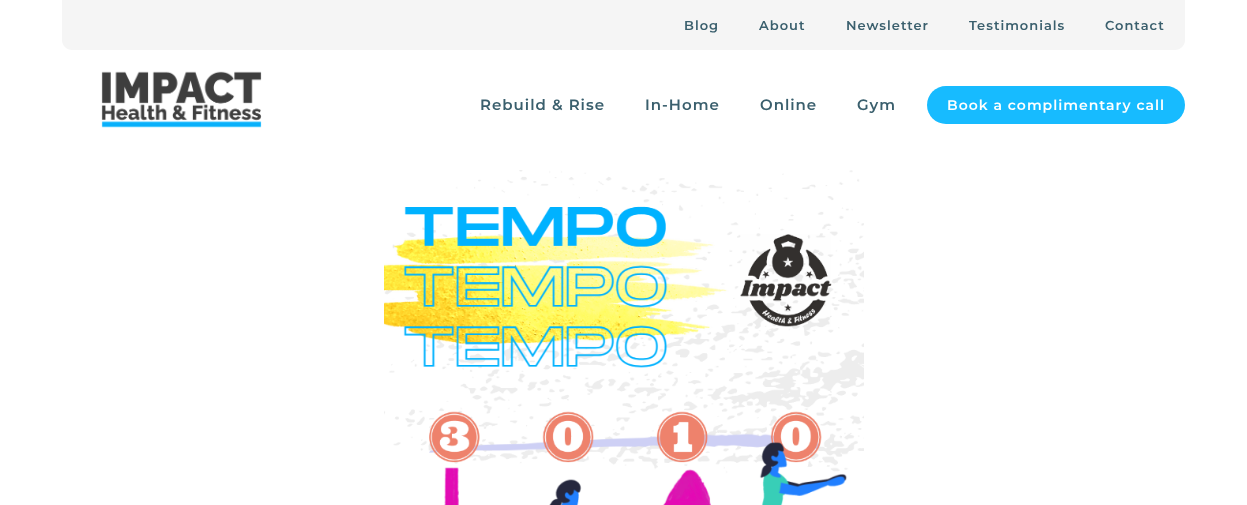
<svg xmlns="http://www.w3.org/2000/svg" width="1247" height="505">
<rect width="100%" height="100%" fill="#fff"/>
<path d="M62 0h1123v40c0 5.5-4.5 10-10 10h-1103c-5.5 0-10-4.5-10-10z" fill="#f5f5f5"/>
<text x="684" y="30" style="font-family:Montserrat;font-size:13px;font-weight:600;letter-spacing:1px;fill:#3a5f6d">Blog</text>
<text x="759" y="30" style="font-family:Montserrat;font-size:13px;font-weight:600;letter-spacing:1px;fill:#3a5f6d">About</text>
<text x="846" y="30" style="font-family:Montserrat;font-size:13px;font-weight:600;letter-spacing:1px;fill:#3a5f6d">Newsletter</text>
<text x="969" y="30" style="font-family:Montserrat;font-size:13px;font-weight:600;letter-spacing:1px;fill:#3a5f6d">Testimonials</text>
<text x="1105" y="30" style="font-family:Montserrat;font-size:13px;font-weight:600;letter-spacing:1px;fill:#3a5f6d">Contact</text>
<image x="101" y="71" width="161" height="57" href="media/1.png"/>
<text x="480" y="110" style="font-family:Montserrat;font-size:15px;font-weight:600;letter-spacing:1px;fill:#3a5f6d">Rebuild &amp; Rise</text>
<text x="645" y="110" style="font-family:Montserrat;font-size:15px;font-weight:600;letter-spacing:1px;fill:#3a5f6d">In-Home</text>
<text x="760" y="110" style="font-family:Montserrat;font-size:15px;font-weight:600;letter-spacing:1px;fill:#3a5f6d">Online</text>
<text x="857" y="110" style="font-family:Montserrat;font-size:15px;font-weight:600;letter-spacing:1px;fill:#3a5f6d">Gym</text>
<rect x="927" y="86" width="258" height="38" rx="19" fill="#17bbff"/>
<text x="947" y="110" style="font-family:Montserrat;font-size:14px;font-weight:600;letter-spacing:1px;fill:#fff">Book a complimentary call</text>
<image x="384" y="170" width="480" height="335" href="media/2.png"/>
</svg>
